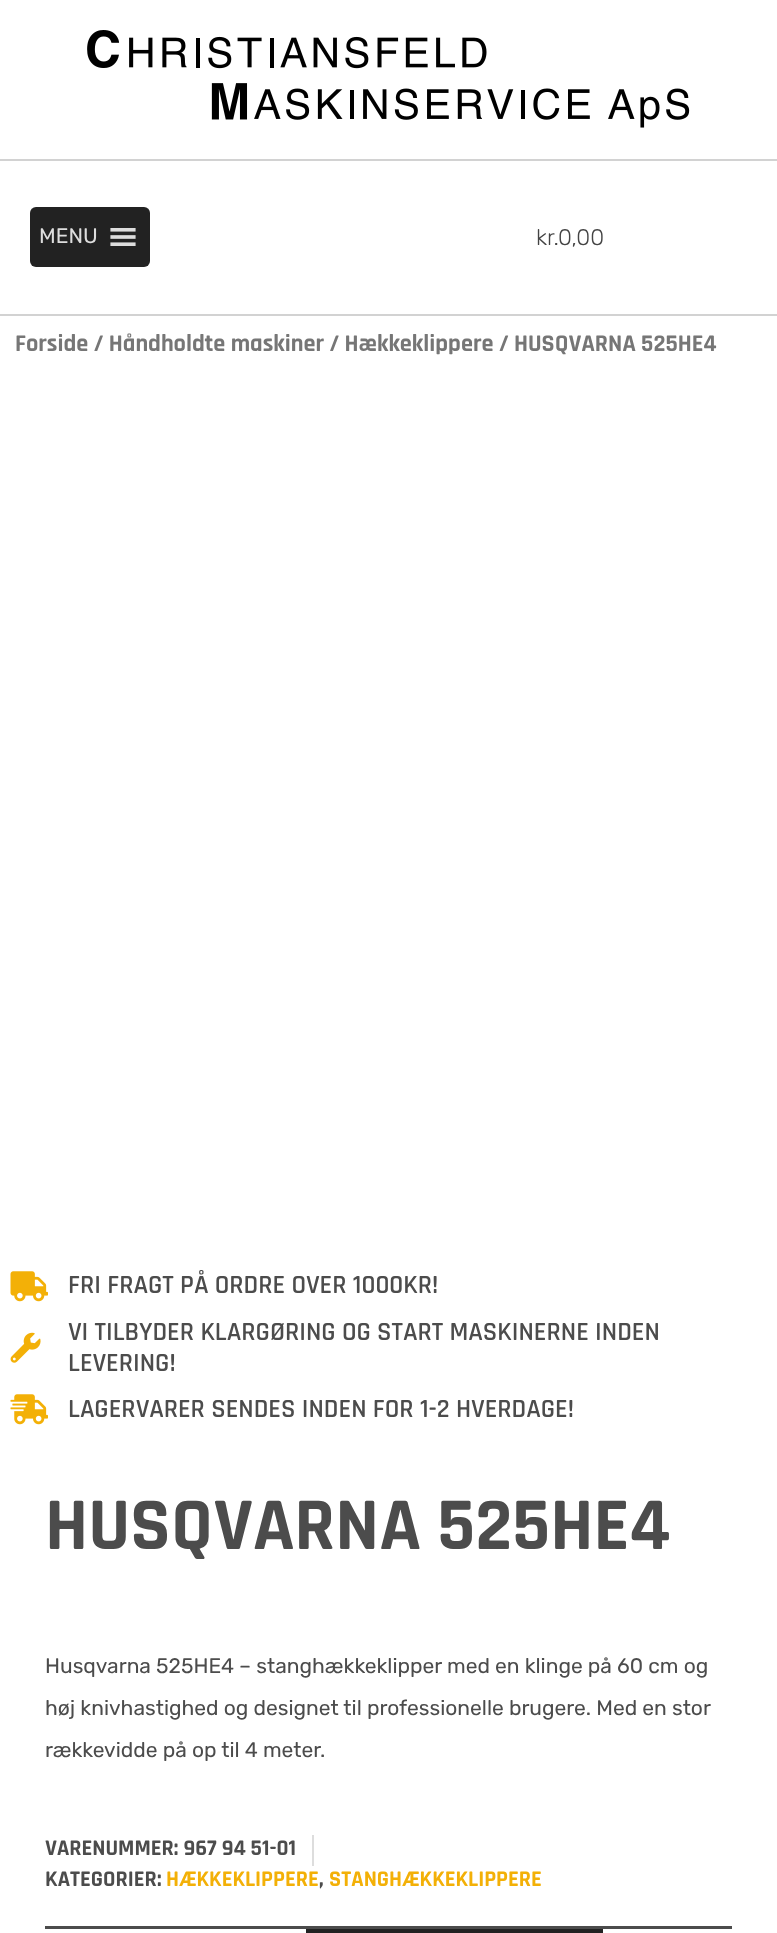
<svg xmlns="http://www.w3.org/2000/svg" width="777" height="1933">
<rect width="100%" height="100%" fill="#fff"/>
<image x="87" y="30" width="603" height="98" href="media/1.png"/>
<rect y="159" width="777" height="2" fill="#d2d2d2"/>
<rect y="314" width="777" height="2" fill="#d2d2d2"/>
<rect x="30" y="207" width="120" height="60" rx="6" fill="#222"/>
<text x="39" y="243" style="font-family:Rubik;font-size:21px;fill:#ddd">MENU</text>
<image x="110" y="228" width="26" height="18" href="media/2.png"/>
<text x="536" y="245" style="font-family:Rubik;font-size:22.5px;font-weight:300;fill:#444">kr.</text>
<text x="558" y="245" style="font-family:Rubik;font-size:22.5px;font-weight:300;fill:#444">0,00</text>
<text x="15" y="351" style="font-family:Rajdhani;font-size:24.3px;font-weight:bold;fill:#767676">Forside / Håndholdte maskiner / Hækkeklippere / HUSQVARNA 525HE4</text>
<image x="10" y="1271" width="38" height="31" href="media/3.png"/>
<text x="68" y="1293" style="font-family:Rajdhani;font-size:26.4px;font-weight:600;fill:#4c4c4c">FRI FRAGT PÅ ORDRE OVER 1000KR!</text>
<image x="10" y="1332" width="31" height="31" href="media/4.png"/>
<text x="68" y="1340" style="font-family:Rajdhani;font-size:26.4px;font-weight:600;fill:#4c4c4c">VI TILBYDER KLARGØRING OG START MASKINERNE INDEN</text>
<text x="68" y="1371" style="font-family:Rajdhani;font-size:26.4px;font-weight:600;fill:#4c4c4c">LEVERING!</text>
<image x="10" y="1394" width="38" height="31" href="media/5.png"/>
<text x="68" y="1417" style="font-family:Rajdhani;font-size:26.4px;font-weight:600;fill:#4c4c4c">LAGERVARER SENDES INDEN FOR 1-2 HVERDAGE!</text>
<text x="45" y="1549" style="font-family:Rajdhani;font-size:75px;font-weight:bold;fill:#4c4c4c">HUSQVARNA 525HE4</text>
<text x="45" y="1673" style="font-family:Rubik;font-size:21px;fill:#4c4c4c">Husqvarna 525HE4 – stanghækkeklipper med en klinge på 60 cm og</text>
<text x="45" y="1715" style="font-family:Rubik;font-size:21px;fill:#4c4c4c">høj knivhastighed og designet til professionelle brugere. Med en stor</text>
<text x="45" y="1757" style="font-family:Rubik;font-size:21px;fill:#4c4c4c">rækkevidde på op til 4 meter.</text>
<text x="45" y="1855" style="font-family:Rajdhani;font-size:22.5px;font-weight:bold;fill:#4c4c4c">VARENUMMER: 967 94 51-01</text>
<rect x="312" y="1835" width="2" height="31" fill="#ddd"/>
<text x="45" y="1886" style="font-family:Rajdhani;font-size:22.5px;font-weight:bold;fill:#4c4c4c">KATEGORIER:</text>
<text x="166" y="1886" style="font-family:Rajdhani;font-size:22.5px;font-weight:bold;fill:#f3b007">HÆKKEKLIPPERE</text>
<text x="319" y="1886" style="font-family:Rajdhani;font-size:22.5px;font-weight:bold;fill:#4c4c4c">,</text>
<text x="329" y="1886" style="font-family:Rajdhani;font-size:22.5px;font-weight:bold;fill:#f3b007">STANGHÆKKEKLIPPERE</text>
<rect x="45" y="1926" width="687" height="3" fill="#4c4c4c"/>
<rect x="306" y="1929" width="297" height="4" fill="#222"/>
</svg>
